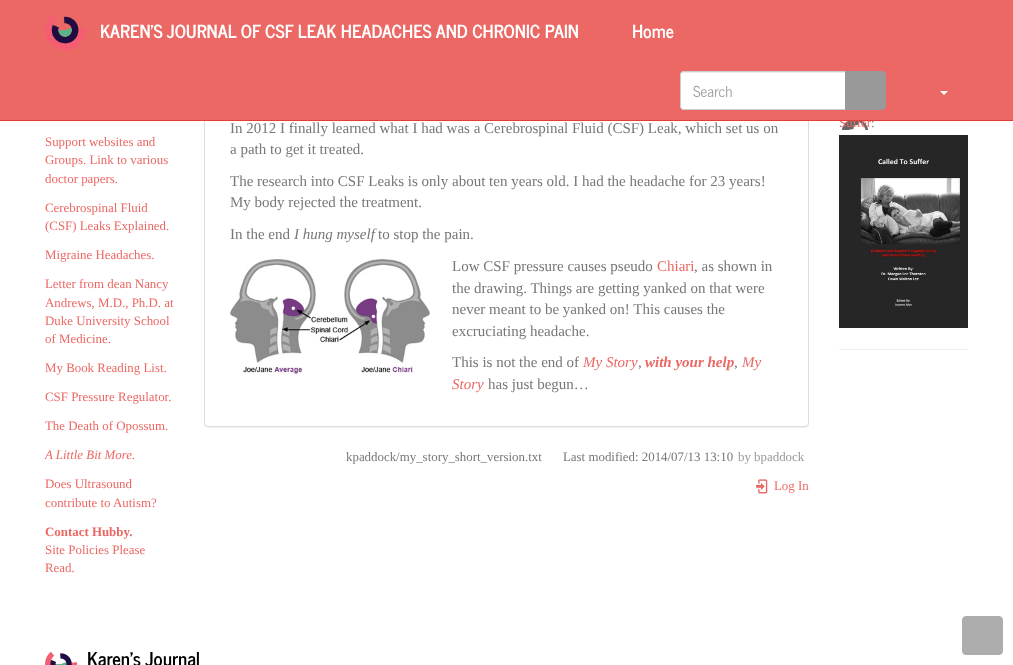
<svg xmlns="http://www.w3.org/2000/svg" width="1013" height="665">
<rect width="100%" height="100%" fill="#fff"/>
<rect x="204" y="-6" width="605" height="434" rx="4" fill="#0000000d" filter="blur(0.5px)"/>
<rect x="204.5" y="-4.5" width="604" height="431" rx="3.5" fill="#fff" stroke="#ddd"/>
<rect width="1013" height="120" fill="#eb6864"/>
<image x="841" y="121" width="28" height="9" href="media/4.png"/>
<text x="839" y="127" style="font-family:Liberation Serif;font-size:12.9px;fill:#eb6864">Suffer</text>
<text x="871" y="127" style="font-family:Liberation Serif;font-size:12.9px;fill:#777">:</text>
<rect y="120" width="1013" height="1" fill="#e53c37"/>
<image x="45" y="15" width="40" height="35" href="media/1.png"/>
<text x="100" y="38" style="font-family:News Cycle;font-size:18px;font-weight:bold;fill:#fff">KAREN'S JOURNAL OF CSF LEAK HEADACHES AND CHRONIC PAIN</text>
<text x="632" y="38" style="font-family:News Cycle;font-size:18px;font-weight:bold;fill:#fff">Home</text>
<path d="M684 71h162v39h-162c-2 0-4-2-4-4v-31c0-2 2-4 4-4z" fill="#fff"/>
<path d="M684 73h161v-1h-161c-2 0-3 2-3 4c0-2 1-3 3-3z" fill="#ececec"/>
<path d="M684 71.5h161.5v38h-161.5c-2 0-3.5-1.5-3.5-3.5v-31c0-2 1.5-3.5 3.5-3.5z" fill="none" stroke="#ccc"/>
<text x="693" y="97" style="font-family:News Cycle;font-size:15px;fill:#999">Search</text>
<path d="M845.5 71.5h36.5c2 0 3.5 1.5 3.5 3.5v31c0 2-1.5 3.5-3.5 3.5h-36.5z" fill="#999" stroke="#999"/>
<path d="M940 91h8l-4 4z" fill="#fff"/>
<text x="45" y="146" style="font-family:Liberation Serif;font-size:12.9px;fill:#eb6864">Support websites and</text>
<text x="45" y="164" style="font-family:Liberation Serif;font-size:12.9px;fill:#eb6864">Groups. Link to various</text>
<text x="45" y="183" style="font-family:Liberation Serif;font-size:12.9px;fill:#eb6864">doctor papers.</text>
<text x="45" y="212" style="font-family:Liberation Serif;font-size:12.9px;fill:#eb6864">Cerebrospinal Fluid</text>
<text x="45" y="230" style="font-family:Liberation Serif;font-size:12.9px;fill:#eb6864">(CSF) Leaks Explained.</text>
<text x="45" y="259" style="font-family:Liberation Serif;font-size:12.9px;fill:#eb6864">Migraine Headaches.</text>
<text x="45" y="288" style="font-family:Liberation Serif;font-size:12.9px;fill:#eb6864">Letter from dean Nancy</text>
<text x="45" y="307" style="font-family:Liberation Serif;font-size:12.9px;fill:#eb6864">Andrews, M.D., Ph.D. at</text>
<text x="45" y="325" style="font-family:Liberation Serif;font-size:12.9px;fill:#eb6864">Duke University School</text>
<text x="45" y="343" style="font-family:Liberation Serif;font-size:12.9px;fill:#eb6864">of Medicine.</text>
<text x="45" y="372" style="font-family:Liberation Serif;font-size:12.9px;fill:#eb6864">My Book Reading List.</text>
<text x="45" y="401" style="font-family:Liberation Serif;font-size:12.9px;fill:#eb6864">CSF Pressure Regulator.</text>
<text x="45" y="430" style="font-family:Liberation Serif;font-size:12.9px;fill:#eb6864">The Death of Opossum.</text>
<text x="45" y="459" style="font-family:Liberation Serif;font-size:12.9px;font-style:italic;fill:#eb6864">A Little Bit More.</text>
<text x="45" y="488" style="font-family:Liberation Serif;font-size:12.9px;fill:#eb6864">Does Ultrasound</text>
<text x="45" y="507" style="font-family:Liberation Serif;font-size:12.9px;fill:#eb6864">contribute to Autism?</text>
<text x="45" y="536" style="font-family:Liberation Serif;font-size:12.9px;font-weight:bold;fill:#eb6864">Contact Hubby.</text>
<text x="45" y="554" style="font-family:Liberation Serif;font-size:12.9px;fill:#eb6864">Site Policies Please</text>
<text x="45" y="572" style="font-family:Liberation Serif;font-size:12.9px;fill:#eb6864">Read.</text>
<text x="230" y="133" style="font-family:Liberation Serif;font-size:15px;fill:#777">In 2012 I finally learned what I had was a Cerebrospinal Fluid (CSF) Leak, which set us on</text>
<text x="230" y="154" style="font-family:Liberation Serif;font-size:15px;fill:#777">a path to get it treated.</text>
<text x="230" y="186" style="font-family:Liberation Serif;font-size:15px;fill:#777">The research into CSF Leaks is only about ten years old. I had the headache for 23 years!</text>
<text x="230" y="207" style="font-family:Liberation Serif;font-size:15px;fill:#777">My body rejected the treatment.</text>
<text x="230" y="239" style="font-family:Liberation Serif;font-size:15px;fill:#777">In the end</text>
<text x="294" y="239" style="font-family:Liberation Serif;font-size:15px;font-style:italic;fill:#777">I hung myself</text>
<text x="378" y="239" style="font-family:Liberation Serif;font-size:15px;fill:#777">to stop the pain.</text>
<image x="230" y="259" width="200" height="115" href="media/2.png"/>
<text x="452" y="271" style="font-family:Liberation Serif;font-size:15px;fill:#777">Low CSF pressure causes pseudo</text>
<text x="657" y="271" style="font-family:Liberation Serif;font-size:15px;fill:#eb6864">Chiari</text>
<text x="694" y="271" style="font-family:Liberation Serif;font-size:15px;fill:#777">, as shown in</text>
<text x="452" y="293" style="font-family:Liberation Serif;font-size:15px;fill:#777">the drawing. Things are getting yanked on that were</text>
<text x="452" y="314" style="font-family:Liberation Serif;font-size:15px;fill:#777">never meant to be yanked on! This causes the</text>
<text x="452" y="336" style="font-family:Liberation Serif;font-size:15px;fill:#777">excruciating headache.</text>
<text x="452" y="367" style="font-family:Liberation Serif;font-size:15px;fill:#777">This is not the end of</text>
<text x="583" y="367" style="font-family:Liberation Serif;font-size:15px;font-style:italic;fill:#eb6864">My Story</text>
<text x="638" y="367" style="font-family:Liberation Serif;font-size:15px;fill:#777">,</text>
<text x="645" y="367" style="font-family:Liberation Serif;font-size:15px;font-weight:bold;font-style:italic;fill:#eb6864">with your help</text>
<text x="734" y="367" style="font-family:Liberation Serif;font-size:15px;fill:#777">,</text>
<text x="742" y="367" style="font-family:Liberation Serif;font-size:15px;font-style:italic;fill:#eb6864">My</text>
<text x="452" y="389" style="font-family:Liberation Serif;font-size:15px;font-style:italic;fill:#eb6864">Story</text>
<text x="488" y="389" style="font-family:Liberation Serif;font-size:15px;fill:#777">has just begun…</text>
<text x="346" y="461" style="font-family:Liberation Serif;font-size:12.9px;fill:#777">kpaddock/my_story_short_version.txt</text>
<text x="563" y="461" style="font-family:Liberation Serif;font-size:12.9px;fill:#777">Last modified: 2014/07/13 13:10</text>
<text x="738" y="461" style="font-family:Liberation Serif;font-size:12.9px;fill:#999">by bpaddock</text>
<image x="756" y="479" width="12" height="15" href="media/3.png"/>
<text x="774" y="490" style="font-family:Liberation Serif;font-size:12.9px;fill:#eb6864">Log In</text>
<image x="839" y="135" width="129" height="193" href="media/5.png"/>
<rect x="839" y="349" width="129" height="1" fill="#eee"/>
<rect x="962.5" y="616.5" width="40" height="38" rx="3.5" fill="#adadad" stroke="#adadad"/>
<image x="45" y="651" width="32" height="14" href="media/6.png"/>
<text x="87" y="666" style="font-family:News Cycle;font-size:19px;font-weight:bold;fill:#000">Karen's Journal</text>
</svg>
